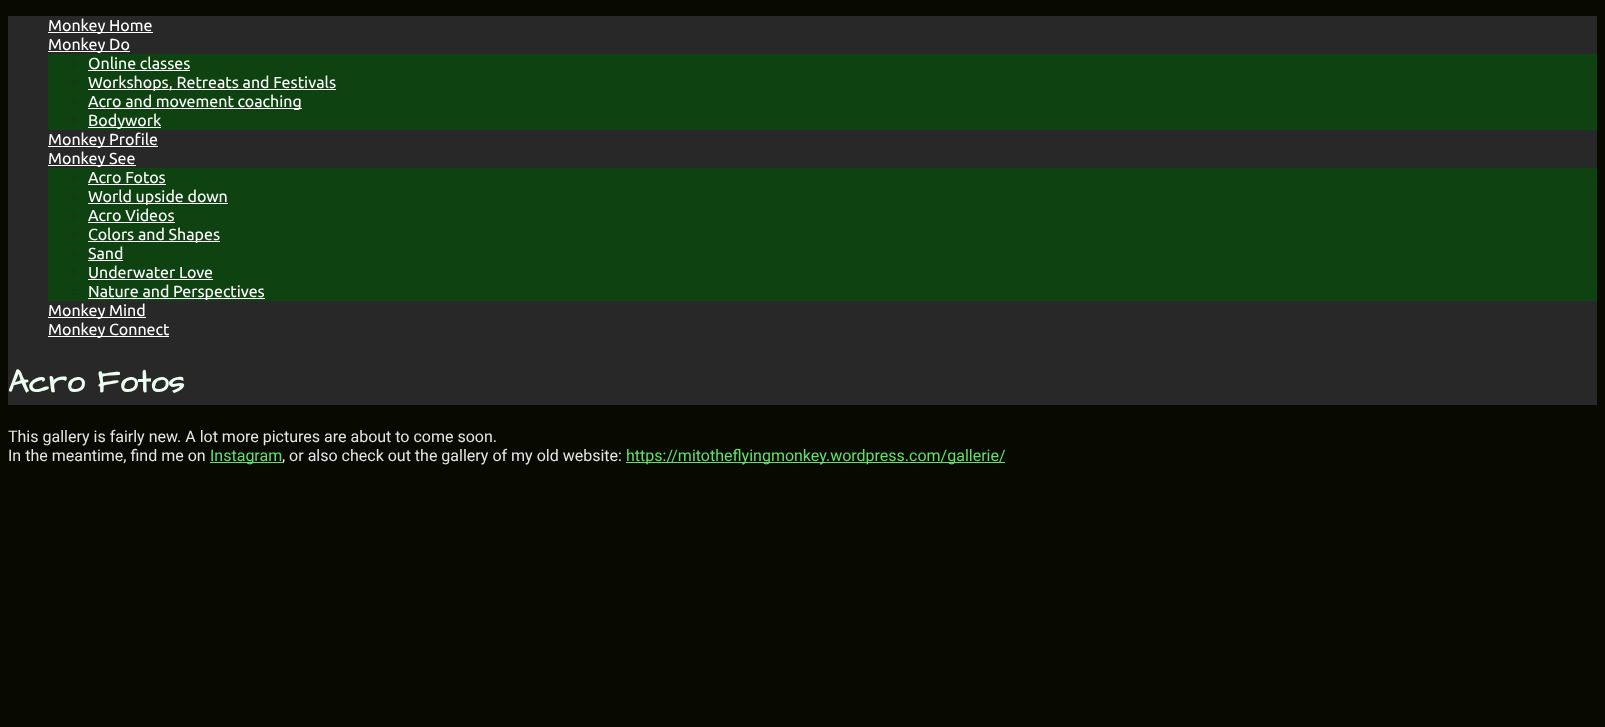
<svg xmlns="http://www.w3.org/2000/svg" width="1605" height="727">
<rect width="100%" height="100%" fill="#080a00"/>
<rect x="8" y="16" width="1589" height="389" fill="#282828"/>
<rect x="48" y="32" width="105" height="1" fill="#fff"/>
<text x="48" y="31" style="font-family:Ubuntu;font-size:16px;fill:#fff">Monkey Home</text>
<rect x="48" y="51" width="82" height="1" fill="#fff"/>
<text x="48" y="50" style="font-family:Ubuntu;font-size:16px;fill:#fff">Monkey Do</text>
<rect x="48" y="54" width="1549" height="76" fill="#0e4210"/>
<circle cx="74" cy="64" r="2.5" fill="none" stroke="#1b351c"/>
<text x="88" y="69" style="font-family:Ubuntu;font-size:16px;fill:#fff">Online classes</text>
<rect x="88" y="70" width="102" height="1" fill="#fff"/>
<circle cx="74" cy="83" r="2.5" fill="none" stroke="#1b351c"/>
<rect x="88" y="89" width="248" height="1" fill="#fff"/>
<text x="88" y="88" style="font-family:Ubuntu;font-size:16px;fill:#fff">Workshops, Retreats and Festivals</text>
<circle cx="74" cy="102" r="2.5" fill="none" stroke="#1b351c"/>
<rect x="88" y="108" width="214" height="1" fill="#fff"/>
<text x="88" y="107" style="font-family:Ubuntu;font-size:16px;fill:#fff">Acro and movement coaching</text>
<circle cx="74" cy="121" r="2.5" fill="none" stroke="#1b351c"/>
<rect x="88" y="127" width="73" height="1" fill="#fff"/>
<text x="88" y="126" style="font-family:Ubuntu;font-size:16px;fill:#fff">Bodywork</text>
<rect x="48" y="146" width="110" height="1" fill="#fff"/>
<text x="48" y="145" style="font-family:Ubuntu;font-size:16px;fill:#fff">Monkey Profile</text>
<rect x="48" y="165" width="88" height="1" fill="#fff"/>
<text x="48" y="164" style="font-family:Ubuntu;font-size:16px;fill:#fff">Monkey See</text>
<rect x="48" y="168" width="1549" height="133" fill="#0e4210"/>
<circle cx="74" cy="178" r="2.5" fill="none" stroke="#1b351c"/>
<text x="88" y="183" style="font-family:Ubuntu;font-size:16px;fill:#fff">Acro Fotos</text>
<rect x="88" y="184" width="78" height="1" fill="#fff"/>
<circle cx="74" cy="197" r="2.5" fill="none" stroke="#1b351c"/>
<rect x="88" y="203" width="140" height="1" fill="#fff"/>
<text x="88" y="202" style="font-family:Ubuntu;font-size:16px;fill:#fff">World upside down</text>
<circle cx="74" cy="216" r="2.5" fill="none" stroke="#1b351c"/>
<text x="88" y="221" style="font-family:Ubuntu;font-size:16px;fill:#fff">Acro Videos</text>
<rect x="88" y="222" width="87" height="1" fill="#fff"/>
<circle cx="74" cy="235" r="2.5" fill="none" stroke="#1b351c"/>
<rect x="88" y="241" width="132" height="1" fill="#fff"/>
<text x="88" y="240" style="font-family:Ubuntu;font-size:16px;fill:#fff">Colors and Shapes</text>
<circle cx="74" cy="254" r="2.5" fill="none" stroke="#1b351c"/>
<text x="88" y="259" style="font-family:Ubuntu;font-size:16px;fill:#fff">Sand</text>
<rect x="88" y="260" width="35" height="1" fill="#fff"/>
<circle cx="74" cy="273" r="2.5" fill="none" stroke="#1b351c"/>
<text x="88" y="278" style="font-family:Ubuntu;font-size:16px;fill:#fff">Underwater Love</text>
<rect x="88" y="279" width="125" height="1" fill="#fff"/>
<circle cx="74" cy="292" r="2.5" fill="none" stroke="#1b351c"/>
<rect x="88" y="298" width="177" height="1" fill="#fff"/>
<text x="88" y="297" style="font-family:Ubuntu;font-size:16px;fill:#fff">Nature and Perspectives</text>
<rect x="48" y="317" width="98" height="1" fill="#fff"/>
<text x="48" y="316" style="font-family:Ubuntu;font-size:16px;fill:#fff">Monkey Mind</text>
<rect x="48" y="336" width="121" height="1" fill="#fff"/>
<text x="48" y="335" style="font-family:Ubuntu;font-size:16px;fill:#fff">Monkey Connect</text>
<text x="8" y="392" style="font-family:Architects Daughter;font-size:32px;font-weight:bold;fill:#edfff1">Acro Fotos</text>
<text x="8" y="442" style="font-family:Roboto;font-size:16px;fill:#e5e5e5">This gallery is fairly new. A lot more pictures are about to come soon.</text>
<text x="8" y="461" style="font-family:Roboto;font-size:16px;fill:#e5e5e5">In the meantime, find me on</text>
<rect x="210" y="462" width="72" height="1" fill="#61e268"/>
<text x="210" y="461" style="font-family:Roboto;font-size:16px;fill:#61e268">Instagram</text>
<text x="282" y="461" style="font-family:Roboto;font-size:16px;fill:#e5e5e5">, or also check out the gallery of my old website:</text>
<rect x="626" y="462" width="379" height="1" fill="#61e268"/>
<text x="626" y="461" style="font-family:Roboto;font-size:16px;fill:#61e268">https://mitotheflyingmonkey.wordpress.com/gallerie/</text>
</svg>
